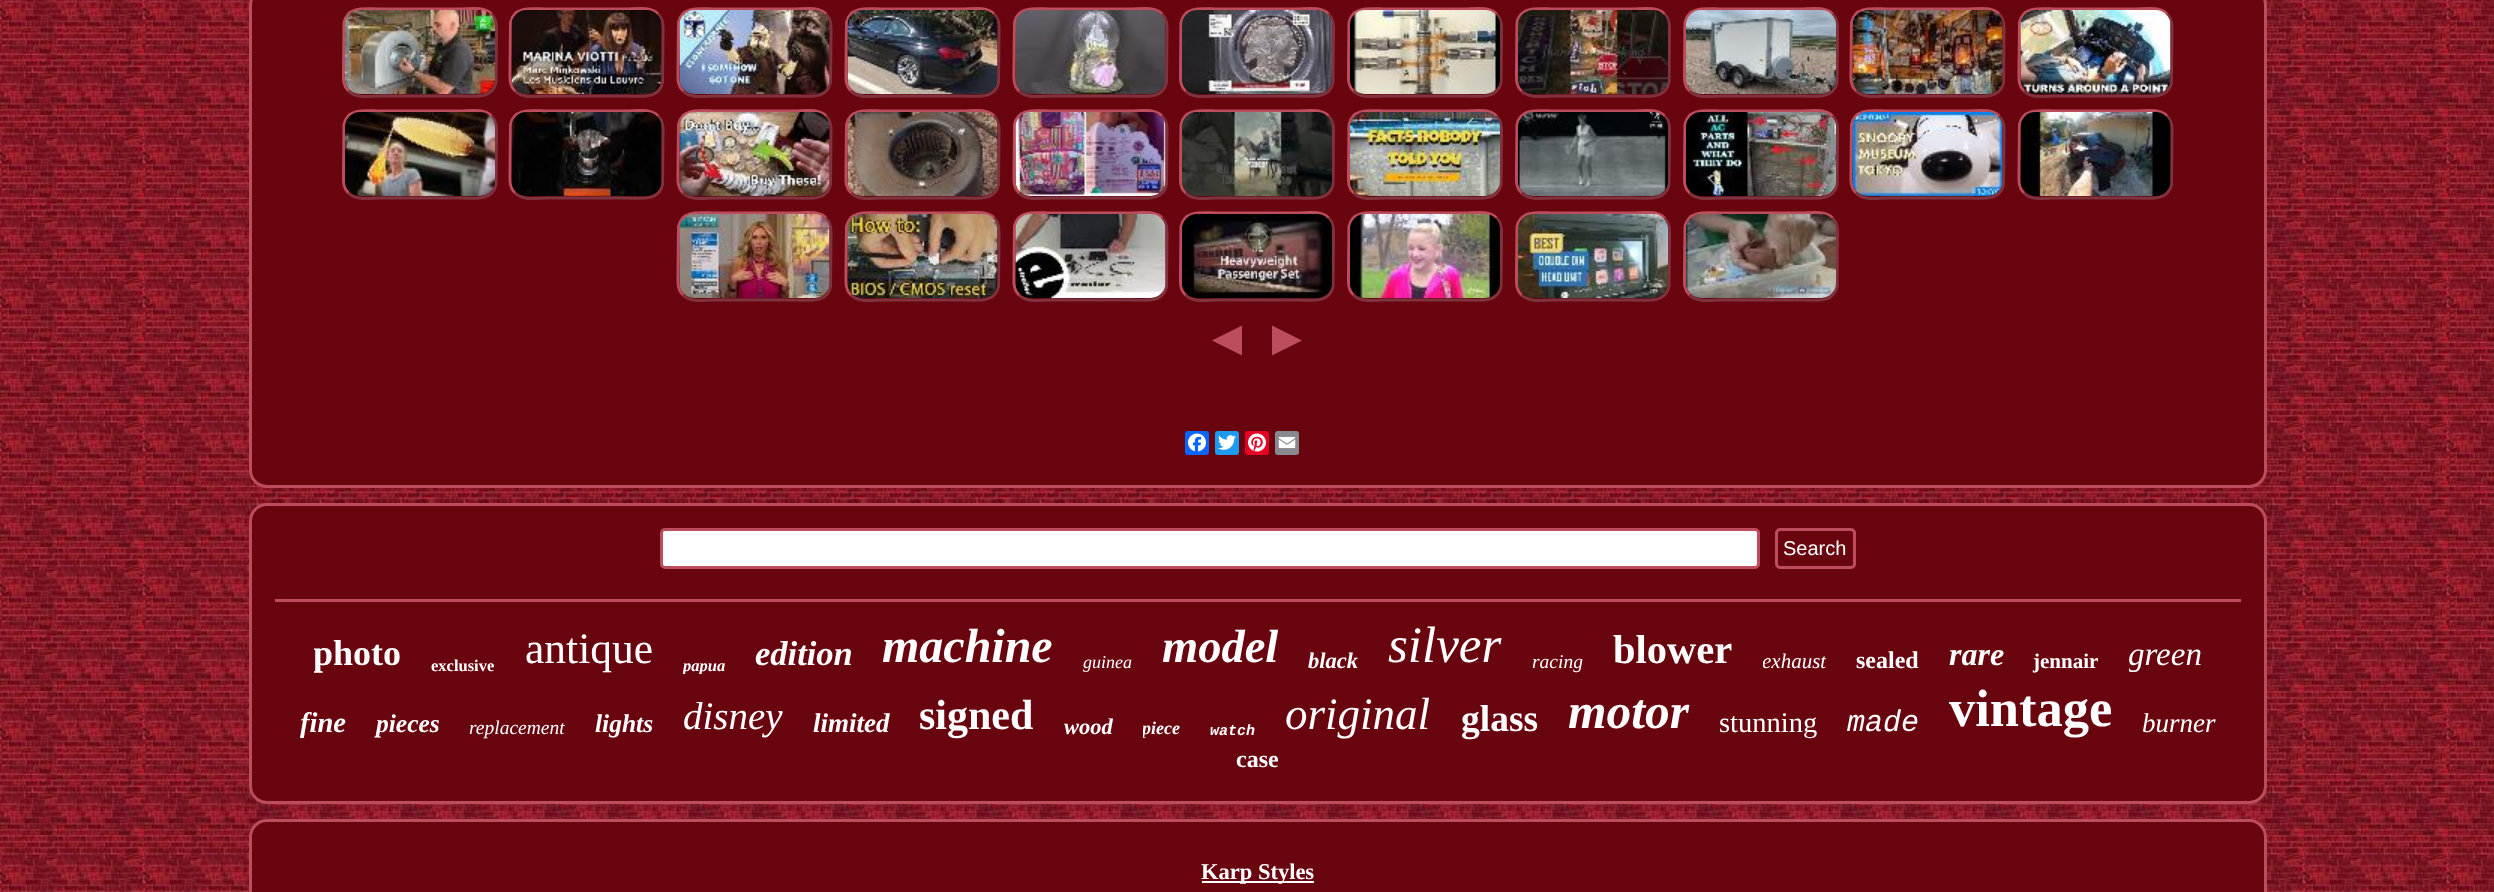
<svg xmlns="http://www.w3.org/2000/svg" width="2494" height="892">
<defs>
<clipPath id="clip1"><rect x="314" y="633" width="88" height="41"/></clipPath>
<clipPath id="clip2"><rect x="683" y="656" width="42" height="18"/></clipPath>
<clipPath id="clip3"><rect x="1763" y="650" width="63" height="24"/></clipPath>
<clipPath id="clip4"><rect x="2129" y="635" width="73" height="39"/></clipPath>
<clipPath id="clip5"><rect x="1143" y="717" width="38" height="23"/></clipPath>
</defs>
<rect width="100%" height="100%" fill="#fff"/>
<image x="0" y="0" width="2494" height="892" href="media/1.png"/>
<rect x="250.5" y="-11.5" width="2015" height="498" rx="16.5" fill="#69050f" stroke="#bd4d5d" stroke-width="3"/>
<path d="M491.5 14c6 5.5 5 13 5 20.5l-.5 48c-3.5 17.5-23.5 13.5-36 13.5h-80c-9 0-24 3-31.5-5" fill="none" stroke="#7e333e" stroke-width="3"/>
<path d="M348.5 91c-6-5.5-5-13-5-20.5l.5-48c3.5-17.5 23.5-13.5 36-13.5h80c9 0 24-3 31.5 5" fill="none" stroke="#bd4d5d" stroke-width="3"/>
<path d="M658 14c6 5.5 5 13 5 20.5l-.5 48c-3.5 17.5-23.5 13.5-36 13.5h-80c-9 0-24 3-31.5-5" fill="none" stroke="#7e333e" stroke-width="3"/>
<path d="M515 91c-6-5.5-5-13-5-20.5l.5-48c3.5-17.5 23.5-13.5 36-13.5h80c9 0 24-3 31.5 5" fill="none" stroke="#bd4d5d" stroke-width="3"/>
<path d="M826 14c6 5.5 5 13 5 20.5l-.5 48c-3.5 17.5-23.5 13.5-36 13.5h-80c-9 0-24 3-31.5-5" fill="none" stroke="#7e333e" stroke-width="3"/>
<path d="M683 91c-6-5.5-5-13-5-20.5l.5-48c3.5-17.5 23.5-13.5 36-13.5h80c9 0 24-3 31.5 5" fill="none" stroke="#bd4d5d" stroke-width="3"/>
<path d="M994 14c6 5.5 5 13 5 20.5l-.5 48c-3.5 17.5-23.5 13.5-36 13.5h-80c-9 0-24 3-31.5-5" fill="none" stroke="#7e333e" stroke-width="3"/>
<path d="M851 91c-6-5.5-5-13-5-20.5l.5-48c3.5-17.5 23.5-13.5 36-13.5h80c9 0 24-3 31.5 5" fill="none" stroke="#bd4d5d" stroke-width="3"/>
<path d="M1162 14c6 5.5 5 13 5 20.5l-.5 48c-3.5 17.5-23.5 13.5-36 13.5h-80c-9 0-24 3-31.5-5" fill="none" stroke="#7e333e" stroke-width="3"/>
<path d="M1019 91c-6-5.5-5-13-5-20.5l.5-48c3.5-17.5 23.5-13.5 36-13.5h80c9 0 24-3 31.5 5" fill="none" stroke="#bd4d5d" stroke-width="3"/>
<path d="M1328.5 14c6 5.5 5 13 5 20.5l-.5 48c-3.5 17.5-23.5 13.5-36 13.5h-80c-9 0-24 3-31.5-5" fill="none" stroke="#7e333e" stroke-width="3"/>
<path d="M1185.5 91c-6-5.5-5-13-5-20.5l.5-48c3.5-17.5 23.5-13.5 36-13.5h80c9 0 24-3 31.5 5" fill="none" stroke="#bd4d5d" stroke-width="3"/>
<path d="M1496.5 14c6 5.5 5 13 5 20.5l-.5 48c-3.5 17.5-23.5 13.5-36 13.5h-80c-9 0-24 3-31.5-5" fill="none" stroke="#7e333e" stroke-width="3"/>
<path d="M1353.5 91c-6-5.5-5-13-5-20.5l.5-48c3.5-17.5 23.5-13.5 36-13.5h80c9 0 24-3 31.5 5" fill="none" stroke="#bd4d5d" stroke-width="3"/>
<path d="M1664.5 14c6 5.5 5 13 5 20.5l-.5 48c-3.5 17.5-23.5 13.5-36 13.5h-80c-9 0-24 3-31.5-5" fill="none" stroke="#7e333e" stroke-width="3"/>
<path d="M1521.5 91c-6-5.5-5-13-5-20.5l.5-48c3.5-17.5 23.5-13.5 36-13.5h80c9 0 24-3 31.5 5" fill="none" stroke="#bd4d5d" stroke-width="3"/>
<path d="M1832.5 14c6 5.5 5 13 5 20.5l-.5 48c-3.5 17.5-23.5 13.5-36 13.5h-80c-9 0-24 3-31.5-5" fill="none" stroke="#7e333e" stroke-width="3"/>
<path d="M1689.5 91c-6-5.5-5-13-5-20.5l.5-48c3.5-17.5 23.5-13.5 36-13.5h80c9 0 24-3 31.5 5" fill="none" stroke="#bd4d5d" stroke-width="3"/>
<path d="M1999 14c6 5.5 5 13 5 20.5l-.5 48c-3.5 17.5-23.5 13.5-36 13.5h-80c-9 0-24 3-31.5-5" fill="none" stroke="#7e333e" stroke-width="3"/>
<path d="M1856 91c-6-5.5-5-13-5-20.5l.5-48c3.5-17.5 23.5-13.5 36-13.5h80c9 0 24-3 31.5 5" fill="none" stroke="#bd4d5d" stroke-width="3"/>
<path d="M2167 14c6 5.5 5 13 5 20.5l-.5 48c-3.5 17.5-23.5 13.5-36 13.5h-80c-9 0-24 3-31.5-5" fill="none" stroke="#7e333e" stroke-width="3"/>
<path d="M2024 91c-6-5.5-5-13-5-20.5l.5-48c3.5-17.5 23.5-13.5 36-13.5h80c9 0 24-3 31.5 5" fill="none" stroke="#bd4d5d" stroke-width="3"/>
<image x="345" y="10" width="150" height="84" href="media/2.png"/>
<image x="511" y="10" width="151" height="84" href="media/3.png"/>
<image x="679" y="10" width="151" height="84" href="media/4.png"/>
<image x="847" y="10" width="151" height="84" href="media/5.png"/>
<image x="1015" y="10" width="151" height="84" href="media/6.png"/>
<image x="1182" y="10" width="150" height="84" href="media/7.png"/>
<image x="1350" y="10" width="150" height="84" href="media/8.png"/>
<image x="1518" y="10" width="150" height="84" href="media/9.png"/>
<image x="1686" y="10" width="150" height="84" href="media/10.png"/>
<image x="1852" y="10" width="151" height="84" href="media/11.png"/>
<image x="2020" y="10" width="151" height="84" href="media/12.png"/>
<path d="M491.5 116c6 5.5 5 13 5 20.5l-.5 48c-3.5 17.5-23.5 13.5-36 13.5h-80c-9 0-24 3-31.5-5" fill="none" stroke="#7e333e" stroke-width="3"/>
<path d="M348.5 193c-6-5.5-5-13-5-20.5l.5-48c3.5-17.5 23.5-13.5 36-13.5h80c9 0 24-3 31.5 5" fill="none" stroke="#bd4d5d" stroke-width="3"/>
<path d="M658 116c6 5.5 5 13 5 20.5l-.5 48c-3.5 17.5-23.5 13.5-36 13.5h-80c-9 0-24 3-31.5-5" fill="none" stroke="#7e333e" stroke-width="3"/>
<path d="M515 193c-6-5.5-5-13-5-20.5l.5-48c3.5-17.5 23.5-13.5 36-13.5h80c9 0 24-3 31.5 5" fill="none" stroke="#bd4d5d" stroke-width="3"/>
<path d="M826 116c6 5.5 5 13 5 20.5l-.5 48c-3.5 17.5-23.5 13.5-36 13.5h-80c-9 0-24 3-31.5-5" fill="none" stroke="#7e333e" stroke-width="3"/>
<path d="M683 193c-6-5.5-5-13-5-20.5l.5-48c3.5-17.5 23.5-13.5 36-13.5h80c9 0 24-3 31.5 5" fill="none" stroke="#bd4d5d" stroke-width="3"/>
<path d="M994 116c6 5.5 5 13 5 20.5l-.5 48c-3.5 17.5-23.5 13.5-36 13.5h-80c-9 0-24 3-31.5-5" fill="none" stroke="#7e333e" stroke-width="3"/>
<path d="M851 193c-6-5.5-5-13-5-20.5l.5-48c3.5-17.5 23.5-13.5 36-13.5h80c9 0 24-3 31.5 5" fill="none" stroke="#bd4d5d" stroke-width="3"/>
<path d="M1162 116c6 5.5 5 13 5 20.5l-.5 48c-3.5 17.5-23.5 13.5-36 13.5h-80c-9 0-24 3-31.5-5" fill="none" stroke="#7e333e" stroke-width="3"/>
<path d="M1019 193c-6-5.5-5-13-5-20.5l.5-48c3.5-17.5 23.5-13.5 36-13.5h80c9 0 24-3 31.5 5" fill="none" stroke="#bd4d5d" stroke-width="3"/>
<path d="M1328.5 116c6 5.5 5 13 5 20.5l-.5 48c-3.5 17.5-23.5 13.5-36 13.5h-80c-9 0-24 3-31.5-5" fill="none" stroke="#7e333e" stroke-width="3"/>
<path d="M1185.5 193c-6-5.5-5-13-5-20.5l.5-48c3.5-17.5 23.5-13.5 36-13.5h80c9 0 24-3 31.5 5" fill="none" stroke="#bd4d5d" stroke-width="3"/>
<path d="M1496.5 116c6 5.5 5 13 5 20.5l-.5 48c-3.5 17.5-23.5 13.5-36 13.5h-80c-9 0-24 3-31.5-5" fill="none" stroke="#7e333e" stroke-width="3"/>
<path d="M1353.5 193c-6-5.5-5-13-5-20.5l.5-48c3.5-17.5 23.5-13.5 36-13.5h80c9 0 24-3 31.5 5" fill="none" stroke="#bd4d5d" stroke-width="3"/>
<path d="M1664.5 116c6 5.5 5 13 5 20.5l-.5 48c-3.5 17.5-23.5 13.5-36 13.5h-80c-9 0-24 3-31.5-5" fill="none" stroke="#7e333e" stroke-width="3"/>
<path d="M1521.5 193c-6-5.5-5-13-5-20.5l.5-48c3.5-17.5 23.5-13.5 36-13.5h80c9 0 24-3 31.5 5" fill="none" stroke="#bd4d5d" stroke-width="3"/>
<path d="M1832.5 116c6 5.5 5 13 5 20.5l-.5 48c-3.5 17.5-23.5 13.5-36 13.5h-80c-9 0-24 3-31.5-5" fill="none" stroke="#7e333e" stroke-width="3"/>
<path d="M1689.5 193c-6-5.5-5-13-5-20.5l.5-48c3.5-17.5 23.5-13.5 36-13.5h80c9 0 24-3 31.5 5" fill="none" stroke="#bd4d5d" stroke-width="3"/>
<path d="M1999 116c6 5.5 5 13 5 20.5l-.5 48c-3.5 17.5-23.5 13.5-36 13.5h-80c-9 0-24 3-31.5-5" fill="none" stroke="#7e333e" stroke-width="3"/>
<path d="M1856 193c-6-5.5-5-13-5-20.5l.5-48c3.5-17.5 23.5-13.5 36-13.5h80c9 0 24-3 31.5 5" fill="none" stroke="#bd4d5d" stroke-width="3"/>
<path d="M2167 116c6 5.5 5 13 5 20.5l-.5 48c-3.5 17.5-23.5 13.5-36 13.5h-80c-9 0-24 3-31.5-5" fill="none" stroke="#7e333e" stroke-width="3"/>
<path d="M2024 193c-6-5.5-5-13-5-20.5l.5-48c3.5-17.5 23.5-13.5 36-13.5h80c9 0 24-3 31.5 5" fill="none" stroke="#bd4d5d" stroke-width="3"/>
<image x="345" y="112" width="150" height="84" href="media/13.png"/>
<image x="511" y="112" width="151" height="84" href="media/14.png"/>
<image x="679" y="112" width="151" height="84" href="media/15.png"/>
<image x="847" y="112" width="151" height="84" href="media/16.png"/>
<image x="1015" y="112" width="151" height="84" href="media/17.png"/>
<image x="1182" y="112" width="150" height="84" href="media/18.png"/>
<image x="1350" y="112" width="150" height="84" href="media/19.png"/>
<image x="1518" y="112" width="150" height="84" href="media/20.png"/>
<image x="1686" y="112" width="150" height="84" href="media/21.png"/>
<image x="1852" y="112" width="151" height="84" href="media/22.png"/>
<image x="2020" y="112" width="151" height="84" href="media/23.png"/>
<path d="M826 218c6 5.5 5 13 5 20.5l-.5 48c-3.5 17.5-23.5 13.5-36 13.5h-80c-9 0-24 3-31.5-5" fill="none" stroke="#7e333e" stroke-width="3"/>
<path d="M683 295c-6-5.5-5-13-5-20.5l.5-48c3.5-17.5 23.5-13.5 36-13.5h80c9 0 24-3 31.5 5" fill="none" stroke="#bd4d5d" stroke-width="3"/>
<path d="M994 218c6 5.5 5 13 5 20.5l-.5 48c-3.5 17.5-23.5 13.5-36 13.5h-80c-9 0-24 3-31.5-5" fill="none" stroke="#7e333e" stroke-width="3"/>
<path d="M851 295c-6-5.5-5-13-5-20.5l.5-48c3.5-17.5 23.5-13.5 36-13.5h80c9 0 24-3 31.5 5" fill="none" stroke="#bd4d5d" stroke-width="3"/>
<path d="M1162 218c6 5.5 5 13 5 20.5l-.5 48c-3.5 17.5-23.5 13.5-36 13.5h-80c-9 0-24 3-31.5-5" fill="none" stroke="#7e333e" stroke-width="3"/>
<path d="M1019 295c-6-5.5-5-13-5-20.5l.5-48c3.5-17.5 23.5-13.5 36-13.5h80c9 0 24-3 31.5 5" fill="none" stroke="#bd4d5d" stroke-width="3"/>
<path d="M1328.5 218c6 5.5 5 13 5 20.5l-.5 48c-3.5 17.5-23.5 13.5-36 13.5h-80c-9 0-24 3-31.5-5" fill="none" stroke="#7e333e" stroke-width="3"/>
<path d="M1185.5 295c-6-5.5-5-13-5-20.5l.5-48c3.5-17.5 23.5-13.5 36-13.5h80c9 0 24-3 31.5 5" fill="none" stroke="#bd4d5d" stroke-width="3"/>
<path d="M1496.5 218c6 5.5 5 13 5 20.5l-.5 48c-3.5 17.5-23.5 13.5-36 13.5h-80c-9 0-24 3-31.5-5" fill="none" stroke="#7e333e" stroke-width="3"/>
<path d="M1353.5 295c-6-5.5-5-13-5-20.5l.5-48c3.5-17.5 23.5-13.5 36-13.5h80c9 0 24-3 31.5 5" fill="none" stroke="#bd4d5d" stroke-width="3"/>
<path d="M1664.5 218c6 5.5 5 13 5 20.5l-.5 48c-3.5 17.5-23.5 13.5-36 13.5h-80c-9 0-24 3-31.5-5" fill="none" stroke="#7e333e" stroke-width="3"/>
<path d="M1521.5 295c-6-5.5-5-13-5-20.5l.5-48c3.5-17.5 23.5-13.5 36-13.5h80c9 0 24-3 31.5 5" fill="none" stroke="#bd4d5d" stroke-width="3"/>
<path d="M1832.5 218c6 5.5 5 13 5 20.5l-.5 48c-3.5 17.5-23.5 13.5-36 13.5h-80c-9 0-24 3-31.5-5" fill="none" stroke="#7e333e" stroke-width="3"/>
<path d="M1689.5 295c-6-5.5-5-13-5-20.5l.5-48c3.5-17.5 23.5-13.5 36-13.5h80c9 0 24-3 31.5 5" fill="none" stroke="#bd4d5d" stroke-width="3"/>
<image x="679" y="214" width="151" height="84" href="media/24.png"/>
<image x="847" y="214" width="151" height="84" href="media/25.png"/>
<image x="1015" y="214" width="151" height="84" href="media/26.png"/>
<image x="1182" y="214" width="150" height="84" href="media/27.png"/>
<image x="1350" y="214" width="150" height="84" href="media/28.png"/>
<image x="1518" y="214" width="150" height="84" href="media/29.png"/>
<image x="1686" y="214" width="150" height="84" href="media/30.png"/>
<path d="M1242 325.5v30l-30-15z" fill="#bd4d5d"/>
<path d="M1272 355.5v-30l30 15z" fill="#bd4d5d"/>
<rect x="1185" y="431" width="24" height="24" rx="3" fill="#0866ff"/>
<image x="1188" y="433" width="18" height="19" href="media/31.png"/>
<rect x="1215" y="431" width="24" height="24" rx="3" fill="#1d9bf0"/>
<image x="1218" y="435" width="18" height="15" href="media/32.png"/>
<rect x="1245" y="431" width="24" height="24" rx="3" fill="#e60023"/>
<image x="1248" y="433" width="18" height="19" href="media/33.png"/>
<rect x="1275" y="431" width="24" height="24" rx="3" fill="#888990"/>
<image x="1278" y="436" width="18" height="13" href="media/34.png"/>
<rect x="250.5" y="504.5" width="2015" height="298" rx="16.5" fill="#69050f" stroke="#bd4d5d" stroke-width="3"/>
<rect x="661.5" y="529.5" width="1097" height="38" rx="3.5" fill="#fff" stroke="#bd4d5d" stroke-width="3"/>
<rect x="1776.5" y="529.5" width="78" height="38" rx="3.5" fill="none" stroke="#bd4d5d" stroke-width="3"/>
<text x="1783" y="555" style="font-family:Liberation Sans;font-size:20px;fill:#fff">Search</text>
<rect x="275" y="599" width="1966" height="3" fill="#bd4d5d"/>
<g clip-path="url(#clip1)">
<text x="313" y="665" style="font-family:Liberation Serif;font-size:36px;font-weight:bold;fill:#fff">photo</text>
</g>
<text x="431" y="671" style="font-family:Liberation Serif;font-size:16.5px;font-weight:bold;fill:#fff">exclusive</text>
<text x="525" y="663" style="font-family:Liberation Serif;font-size:43.5px;fill:#fff">antique</text>
<g clip-path="url(#clip2)">
<text x="683" y="671" style="font-family:Liberation Serif;font-size:16.5px;font-weight:bold;font-style:italic;fill:#fff">papua</text>
</g>
<text x="755" y="665" style="font-family:Liberation Serif;font-size:34.5px;font-weight:bold;font-style:italic;fill:#fff">edition</text>
<text x="882" y="662" style="font-family:Liberation Serif;font-size:48px;font-weight:bold;font-style:italic;fill:#fff">machine</text>
<text x="1083" y="668" style="font-family:Liberation Serif;font-size:18px;font-style:italic;fill:#fff">guinea</text>
<text x="1162" y="662" style="font-family:Liberation Serif;font-size:46.5px;font-weight:bold;font-style:italic;fill:#fff">model</text>
<text x="1308" y="668" style="font-family:Liberation Serif;font-size:22.5px;font-weight:bold;font-style:italic;fill:#fff">black</text>
<text x="1388" y="662" style="font-family:Liberation Serif;font-size:51px;font-style:italic;fill:#fff">silver</text>
<text x="1532" y="668" style="font-family:Liberation Serif;font-size:19.5px;font-style:italic;fill:#fff">racing</text>
<text x="1613" y="663" style="font-family:Liberation Serif;font-size:40.5px;font-weight:bold;fill:#fff">blower</text>
<g clip-path="url(#clip3)">
<text x="1762" y="668" style="font-family:Liberation Serif;font-size:21px;font-style:italic;fill:#fff">exhaust</text>
</g>
<text x="1856" y="668" style="font-family:Liberation Serif;font-size:24px;font-weight:bold;fill:#fff">sealed</text>
<text x="1949" y="665" style="font-family:Liberation Serif;font-size:32px;font-weight:bold;font-style:italic;fill:#fff">rare</text>
<text x="2033" y="668" style="font-family:Liberation Serif;font-size:21px;font-weight:bold;fill:#fff">jennair</text>
<g clip-path="url(#clip4)">
<text x="2128" y="665" style="font-family:Liberation Serif;font-size:33px;font-style:italic;fill:#fff">green</text>
</g>
<text x="300" y="732" style="font-family:Liberation Serif;font-size:28.5px;font-weight:bold;font-style:italic;fill:#fff">fine</text>
<text x="376" y="732" style="font-family:Liberation Serif;font-size:25.5px;font-weight:bold;font-style:italic;fill:#fff">pieces</text>
<text x="469" y="734" style="font-family:Liberation Serif;font-size:19.5px;font-style:italic;fill:#fff">replacement</text>
<text x="595" y="732" style="font-family:Liberation Serif;font-size:25.5px;font-weight:bold;font-style:italic;fill:#fff">lights</text>
<text x="683" y="729" style="font-family:Liberation Serif;font-size:39px;font-style:italic;fill:#fff">disney</text>
<text x="813" y="732" style="font-family:Liberation Serif;font-size:27px;font-weight:bold;font-style:italic;fill:#fff">limited</text>
<text x="919" y="729" style="font-family:Liberation Serif;font-size:42px;font-weight:bold;fill:#fff">signed</text>
<text x="1064" y="734" style="font-family:Liberation Serif;font-size:22.5px;font-weight:bold;font-style:italic;fill:#fff">wood</text>
<g clip-path="url(#clip5)">
<text x="1142" y="734" style="font-family:Liberation Serif;font-size:18px;font-weight:bold;font-style:italic;fill:#fff">piece</text>
</g>
<text x="1210" y="735" style="font-family:Liberation Mono;font-size:15px;font-weight:bold;font-style:italic;fill:#fff">watch</text>
<text x="1285" y="729" style="font-family:Liberation Serif;font-size:45px;font-style:italic;fill:#fff">original</text>
<text x="1461" y="731" style="font-family:Liberation Serif;font-size:37.5px;font-weight:bold;fill:#fff">glass</text>
<text x="1568" y="728" style="font-family:Liberation Serif;font-size:49.5px;font-weight:bold;font-style:italic;fill:#fff">motor</text>
<text x="1719" y="732" style="font-family:Liberation Serif;font-size:28.5px;fill:#fff">stunning</text>
<text x="1847" y="731" style="font-family:Liberation Mono;font-size:30px;font-style:italic;fill:#fff">made</text>
<text x="1949" y="726" style="font-family:Liberation Serif;font-size:52.5px;font-weight:bold;fill:#fff">vintage</text>
<text x="2142" y="732" style="font-family:Liberation Serif;font-size:27px;font-style:italic;fill:#fff">burner</text>
<text x="1236" y="767" style="font-family:Liberation Serif;font-size:24px;font-weight:bold;fill:#fff">case</text>
<rect x="250.5" y="820.5" width="2015" height="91" rx="16.5" fill="#69050f" stroke="#bd4d5d" stroke-width="3"/>
<rect x="1202" y="881" width="112" height="2" fill="#fff"/>
<text x="1201" y="879" style="font-family:Liberation Serif;font-size:22.5px;font-weight:bold;fill:#fff">Karp Styles</text>
</svg>
